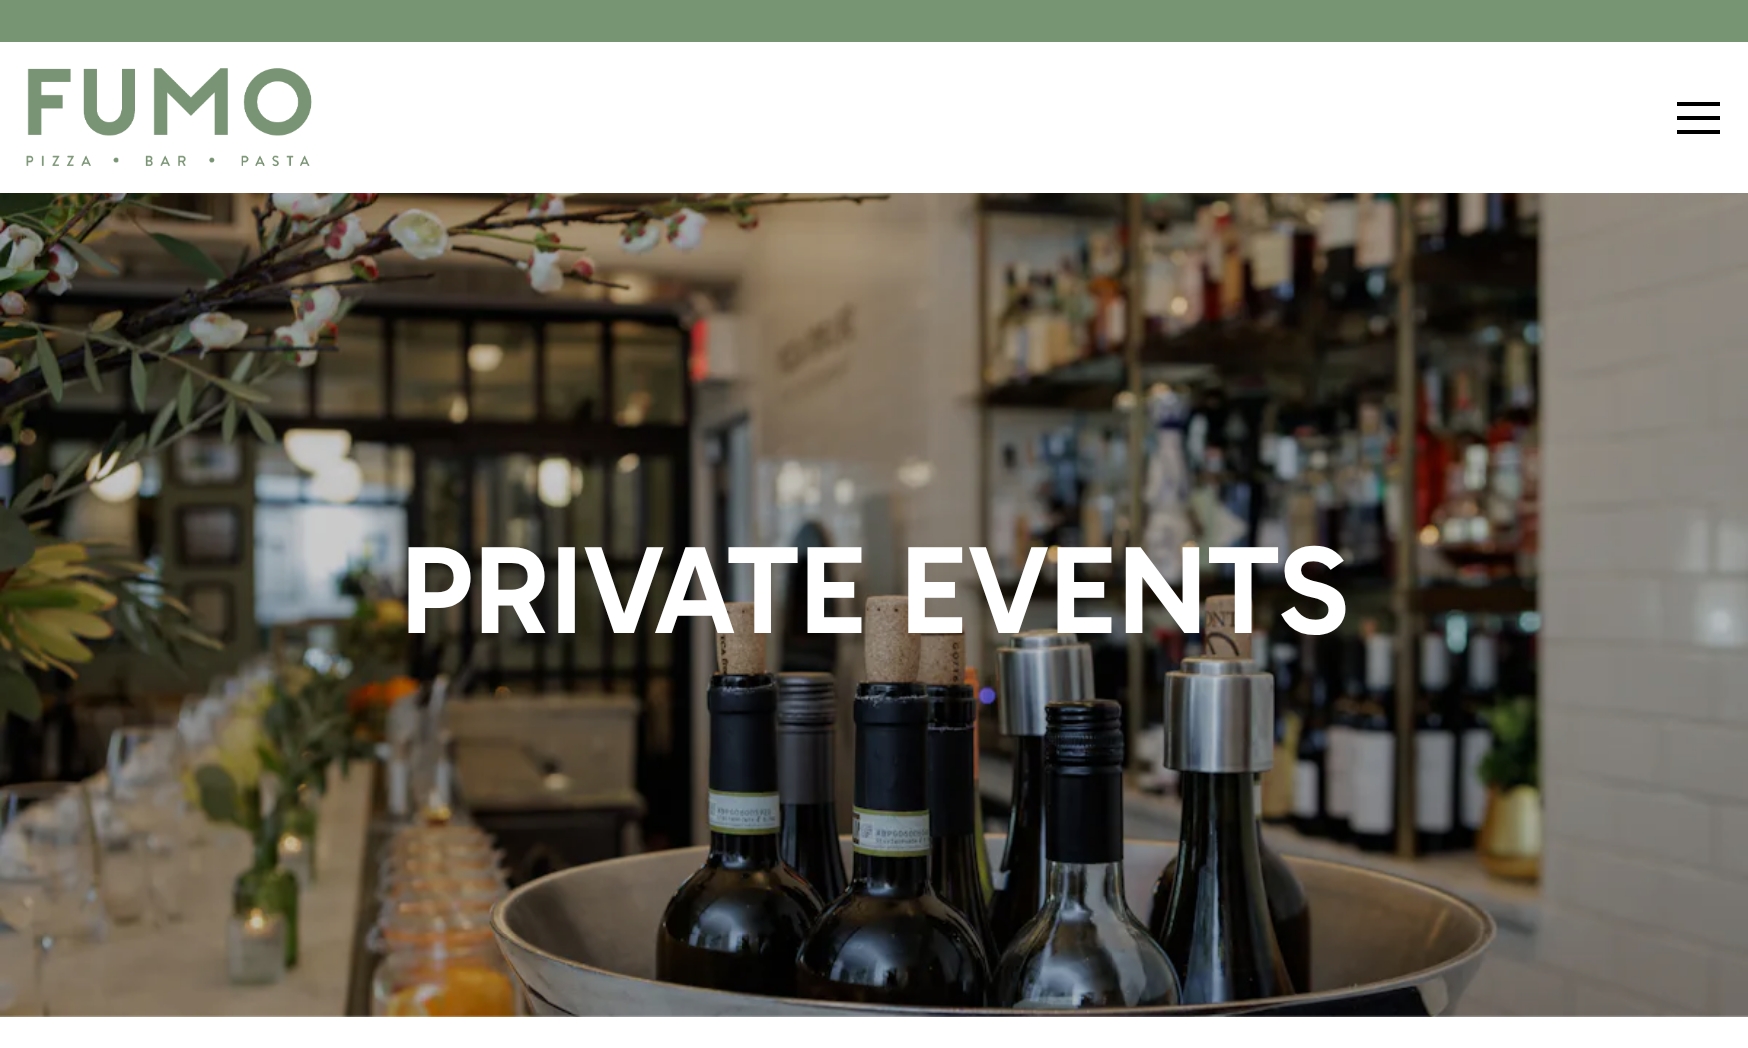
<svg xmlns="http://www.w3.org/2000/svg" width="1748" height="1048">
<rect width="100%" height="100%" fill="#fff"/>
<rect width="1748" height="42" fill="#779473"/>
<image x="26" y="68" width="286" height="99" href="media/1.png"/>
<rect x="1677" y="102" width="43" height="4" fill="#000"/>
<rect x="1677" y="116" width="43" height="4" fill="#000"/>
<rect x="1677" y="130" width="43" height="4" fill="#000"/>
<image x="0" y="193" width="1748" height="824" href="media/2.png"/>
<text x="400" y="633" style="font-family:Gabarito;font-size:126px;font-weight:600;fill:#fff">PRIVATE EVENTS</text>
</svg>
